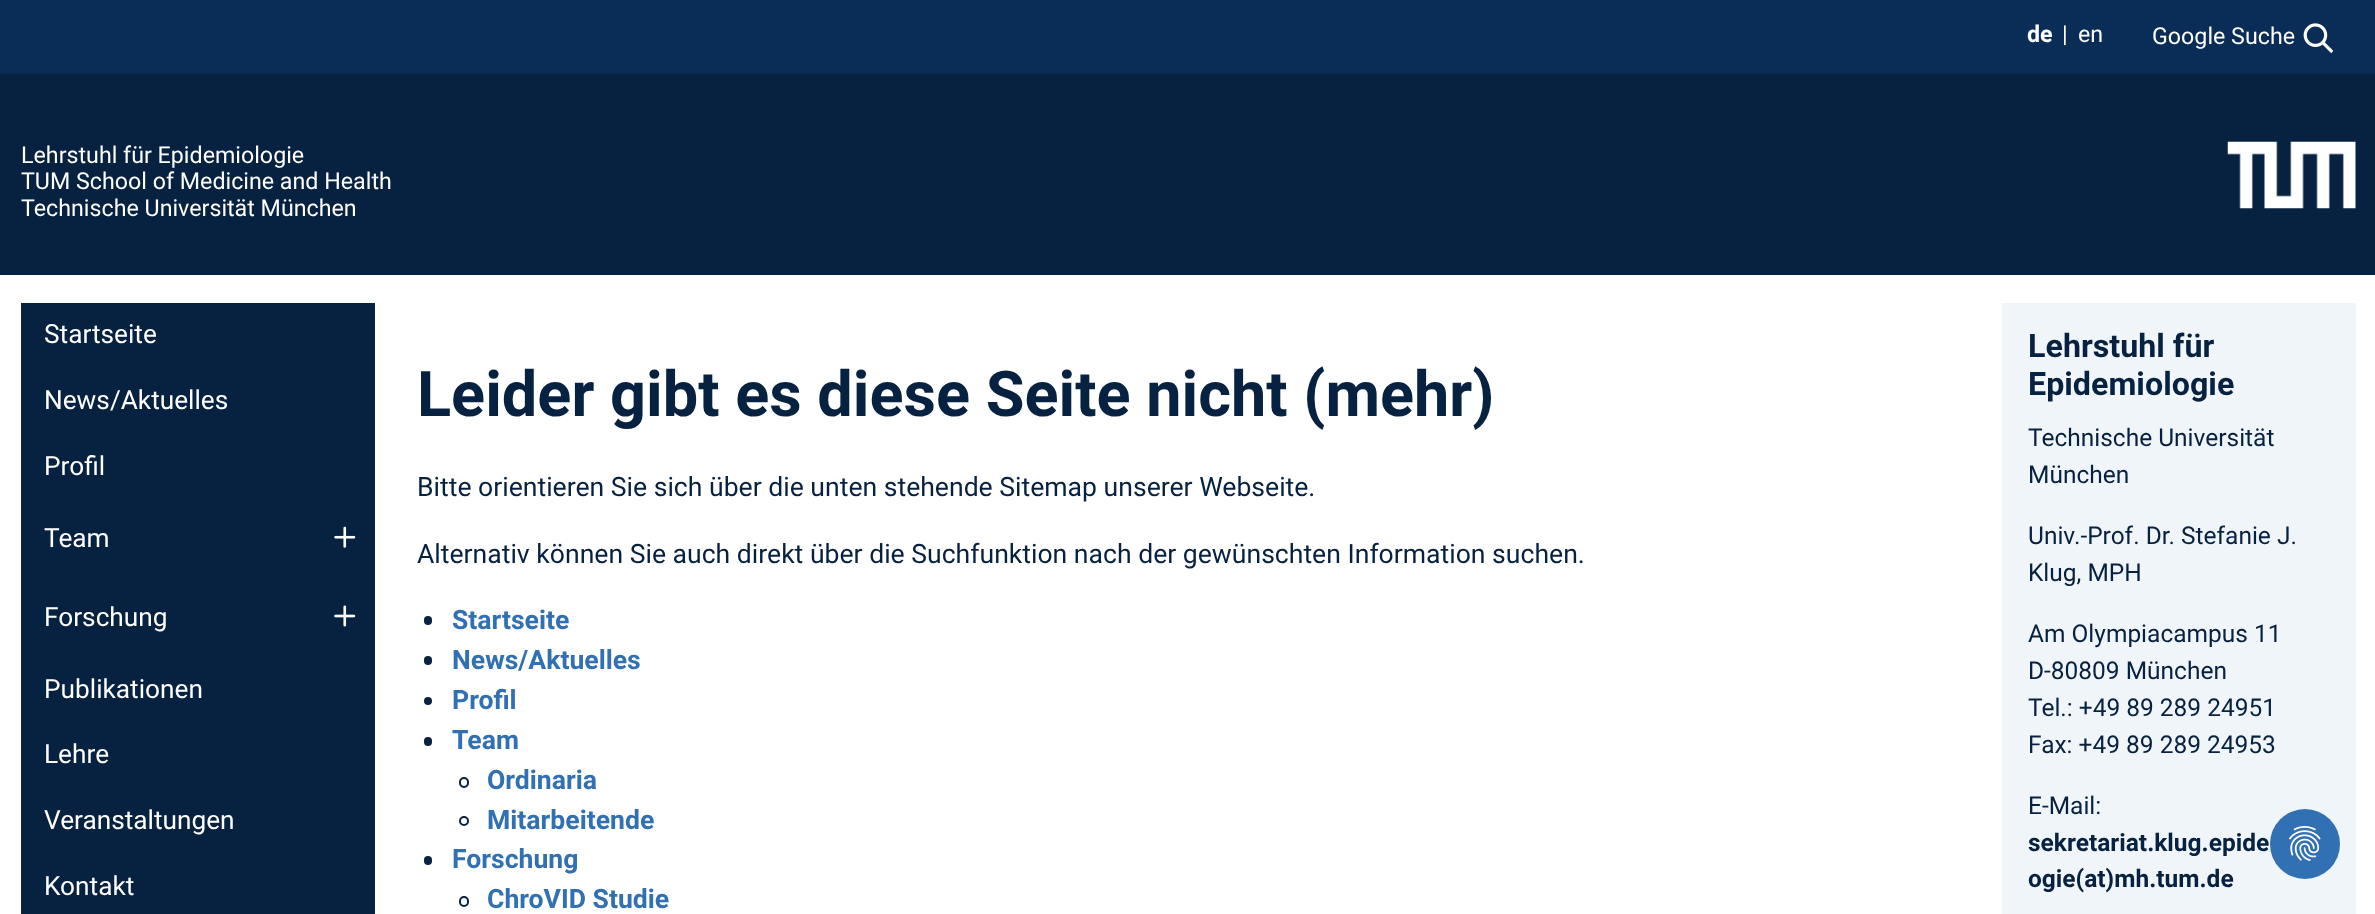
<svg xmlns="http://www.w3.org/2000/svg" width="2375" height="914">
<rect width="100%" height="100%" fill="#fff"/>
<rect width="2375" height="74" fill="#0a2d57"/>
<text x="2027" y="42" style="font-family:Roboto;font-size:23.25px;font-weight:bold;fill:#fff">de</text>
<text x="2062" y="42" style="font-family:Roboto;font-size:23.25px;fill:#fff">|</text>
<text x="2078" y="42" style="font-family:Roboto;font-size:23.25px;fill:#fff">en</text>
<text x="2152" y="44" style="font-family:Roboto;font-size:23.25px;fill:#fff">Google Suche</text>
<image x="2303" y="23" width="30" height="30" href="media/1.png"/>
<rect y="74" width="2375" height="201" fill="#072140"/>
<text x="21" y="163" style="font-family:Roboto;font-size:23.25px;fill:#fff">Lehrstuhl für Epidemiologie</text>
<text x="21" y="189" style="font-family:Roboto;font-size:23.25px;fill:#fff">TUM School of Medicine and Health</text>
<text x="21" y="216" style="font-family:Roboto;font-size:23.25px;fill:#fff">Technische Universität München</text>
<image x="2227" y="141" width="129" height="68" href="media/2.png"/>
<rect x="21" y="303" width="354" height="611" fill="#072140"/>
<text x="44" y="343" style="font-family:Roboto;font-size:26.25px;fill:#fff">Startseite</text>
<text x="44" y="409" style="font-family:Roboto;font-size:26.25px;fill:#fff">News/Aktuelles</text>
<text x="44" y="475" style="font-family:Roboto;font-size:26.25px;fill:#fff">Profil</text>
<text x="44" y="547" style="font-family:Roboto;font-size:26.25px;fill:#fff">Team</text>
<image x="334" y="526" width="22" height="22" href="media/3.png"/>
<text x="44" y="626" style="font-family:Roboto;font-size:26.25px;fill:#fff">Forschung</text>
<image x="334" y="605" width="22" height="22" href="media/4.png"/>
<text x="44" y="698" style="font-family:Roboto;font-size:26.25px;fill:#fff">Publikationen</text>
<text x="44" y="763" style="font-family:Roboto;font-size:26.25px;fill:#fff">Lehre</text>
<text x="44" y="829" style="font-family:Roboto;font-size:26.25px;fill:#fff">Veranstaltungen</text>
<text x="44" y="895" style="font-family:Roboto;font-size:26.25px;fill:#fff">Kontakt</text>
<text x="417" y="416" style="font-family:Roboto;font-size:63px;font-weight:bold;fill:#072140">Leider gibt es diese Seite nicht (mehr)</text>
<text x="417" y="496" style="font-family:Roboto;font-size:26.6px;fill:#072140">Bitte orientieren Sie sich über die unten stehende Sitemap unserer Webseite.</text>
<text x="417" y="563" style="font-family:Roboto;font-size:26.6px;fill:#072140">Alternativ können Sie auch direkt über die Suchfunktion nach der gewünschten Information suchen.</text>
<rect x="424" y="616" width="8" height="9" rx="4" fill="#072140"/>
<text x="452" y="629" style="font-family:Roboto;font-size:26.6px;font-weight:bold;fill:#3070b3">Startseite</text>
<rect x="424" y="656" width="8" height="9" rx="4" fill="#072140"/>
<text x="452" y="669" style="font-family:Roboto;font-size:26.6px;font-weight:bold;fill:#3070b3">News/Aktuelles</text>
<circle cx="428" cy="701" r="4" fill="#072140"/>
<text x="452" y="709" style="font-family:Roboto;font-size:26.6px;font-weight:bold;fill:#3070b3">Profil</text>
<rect x="424" y="737" width="8" height="9" rx="4" fill="#072140"/>
<text x="452" y="749" style="font-family:Roboto;font-size:26.6px;font-weight:bold;fill:#3070b3">Team</text>
<rect x="460" y="778" width="8" height="9" rx="4" fill="none" stroke="#072140" stroke-width="2"/>
<text x="487" y="789" style="font-family:Roboto;font-size:26.6px;font-weight:bold;fill:#3070b3">Ordinaria</text>
<circle cx="464" cy="821" r="4" fill="none" stroke="#072140" stroke-width="2"/>
<text x="487" y="829" style="font-family:Roboto;font-size:26.6px;font-weight:bold;fill:#3070b3">Mitarbeitende</text>
<rect x="424" y="856" width="8" height="9" rx="4" fill="#072140"/>
<text x="452" y="868" style="font-family:Roboto;font-size:26.6px;font-weight:bold;fill:#3070b3">Forschung</text>
<rect x="460" y="897" width="8" height="9" rx="4" fill="none" stroke="#072140" stroke-width="2"/>
<text x="487" y="908" style="font-family:Roboto;font-size:26.6px;font-weight:bold;fill:#3070b3">ChroVID Studie</text>
<rect x="2002" y="303" width="354" height="611" fill="#f0f5fa"/>
<text x="2028" y="357" style="font-family:Roboto;font-size:32.25px;font-weight:bold;fill:#072140">Lehrstuhl für</text>
<text x="2028" y="395" style="font-family:Roboto;font-size:32.25px;font-weight:bold;fill:#072140">Epidemiologie</text>
<text x="2028" y="446" style="font-family:Roboto;font-size:24.5px;fill:#072140">Technische Universität</text>
<text x="2028" y="483" style="font-family:Roboto;font-size:24.5px;fill:#072140">München</text>
<text x="2028" y="544" style="font-family:Roboto;font-size:24.5px;fill:#072140">Univ.-Prof. Dr. Stefanie J.</text>
<text x="2028" y="581" style="font-family:Roboto;font-size:24.5px;fill:#072140">Klug, MPH</text>
<text x="2028" y="642" style="font-family:Roboto;font-size:24.5px;fill:#072140">Am Olympiacampus 11</text>
<text x="2028" y="679" style="font-family:Roboto;font-size:24.5px;fill:#072140">D-80809 München</text>
<text x="2028" y="716" style="font-family:Roboto;font-size:24.5px;fill:#072140">Tel.: +49 89 289 24951</text>
<text x="2028" y="753" style="font-family:Roboto;font-size:24.5px;fill:#072140">Fax: +49 89 289 24953</text>
<text x="2028" y="814" style="font-family:Roboto;font-size:24.5px;fill:#072140">E-Mail:</text>
<text x="2028" y="851" style="font-family:Roboto;font-size:24.5px;font-weight:bold;fill:#072140">sekretariat.klug.epide</text>
<text x="2028" y="887" style="font-family:Roboto;font-size:24.5px;font-weight:bold;fill:#072140">ogie(at)mh.tum.de</text>
<circle cx="2305" cy="844" r="35" fill="#3070b3"/>
<image x="2289" y="826" width="32" height="35" href="media/5.png"/>
</svg>
